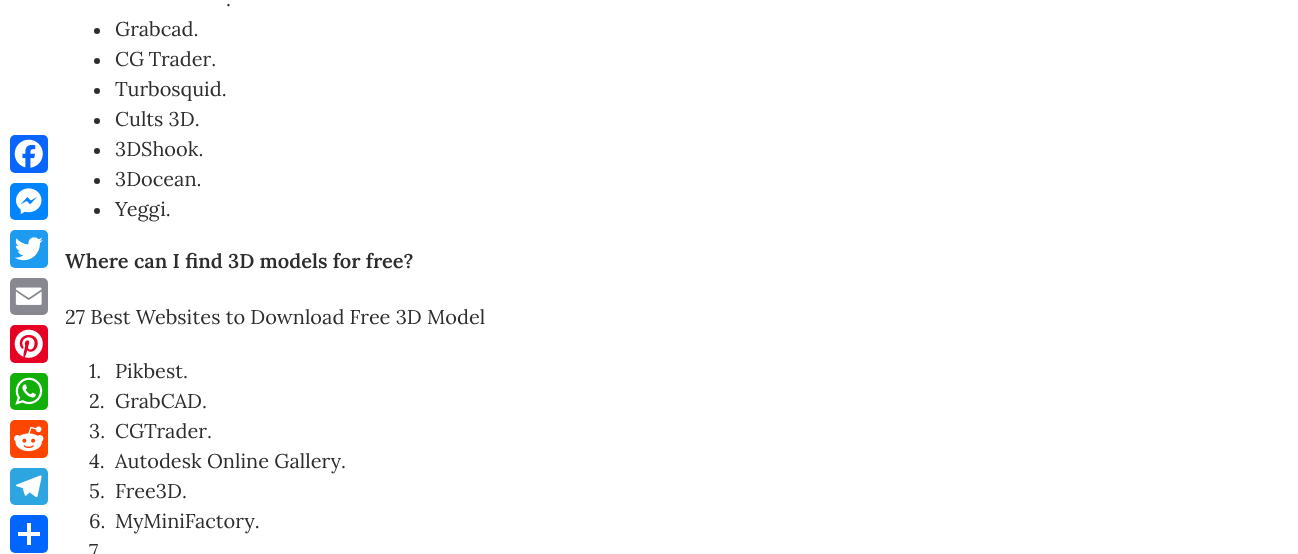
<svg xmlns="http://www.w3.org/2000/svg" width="1298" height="554">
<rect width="100%" height="100%" fill="#fff"/>
<rect x="10" y="135" width="38" height="38" rx="5" fill="#0866ff"/>
<image x="14" y="139" width="29" height="29" href="media/1.png"/>
<rect x="10" y="183" width="38" height="37" rx="5" fill="#0084ff"/>
<image x="16" y="188" width="26" height="26" href="media/2.png"/>
<rect x="10" y="230" width="38" height="38" rx="5" fill="#1d9bf0"/>
<image x="14" y="237" width="29" height="24" href="media/3.png"/>
<rect x="10" y="278" width="38" height="37" rx="5" fill="#888990"/>
<image x="15" y="287" width="27" height="18" href="media/4.png"/>
<rect x="10" y="325" width="38" height="38" rx="5" fill="#e60023"/>
<image x="14" y="329" width="29" height="29" href="media/5.png"/>
<rect x="10" y="373" width="38" height="37" rx="5" fill="#12af0a"/>
<image x="15" y="377" width="28" height="28" href="media/6.png"/>
<rect x="10" y="420" width="38" height="38" rx="5" fill="#ff4500"/>
<image x="14" y="426" width="30" height="26" href="media/7.png"/>
<rect x="10" y="468" width="38" height="37" rx="5" fill="#2ca5e0"/>
<image x="15" y="475" width="27" height="22" href="media/8.png"/>
<rect x="10" y="515" width="38" height="38" rx="5" fill="#0166ff"/>
<rect x="27" y="523" width="4" height="22" fill="#fff"/>
<rect x="18" y="532" width="22" height="4" fill="#fff"/>
<text x="226" y="6" style="font-family:Lora;font-size:20px;fill:#2d2d2d">.</text>
<circle cx="97" cy="31" r="3" fill="#2d2d2d"/>
<text x="115" y="36" style="font-family:Lora;font-size:20px;fill:#2d2d2d">Grabcad.</text>
<circle cx="97" cy="61" r="3" fill="#2d2d2d"/>
<text x="115" y="66" word-spacing="-1" style="font-family:Lora;font-size:20px;fill:#2d2d2d">CG Trader.</text>
<circle cx="97" cy="91" r="3" fill="#2d2d2d"/>
<text x="115" y="96" style="font-family:Lora;font-size:20px;fill:#2d2d2d">Turbosquid.</text>
<circle cx="97" cy="121" r="3" fill="#2d2d2d"/>
<text x="115" y="126" style="font-family:Lora;font-size:20px;fill:#2d2d2d">Cults 3D.</text>
<circle cx="97" cy="151" r="3" fill="#2d2d2d"/>
<text x="115" y="156" style="font-family:Lora;font-size:20px;fill:#2d2d2d">3DShook.</text>
<circle cx="97" cy="181" r="3" fill="#2d2d2d"/>
<text x="115" y="186" style="font-family:Lora;font-size:20px;fill:#2d2d2d">3Docean.</text>
<circle cx="97" cy="211" r="3" fill="#2d2d2d"/>
<text x="115" y="216" style="font-family:Lora;font-size:20px;fill:#2d2d2d">Yeggi.</text>
<text x="65" y="268" style="font-family:Lora;font-size:20px;font-weight:600;fill:#2d2d2d">Where can I find 3D models for free?</text>
<text x="65" y="324" style="font-family:Lora;font-size:20px;fill:#2d2d2d">27 Best Websites to Download Free 3D Model</text>
<text x="89" y="378" style="font-family:Lora;font-size:20px;fill:#2d2d2d">1.</text>
<text x="115" y="378" style="font-family:Lora;font-size:20px;fill:#2d2d2d">Pikbest.</text>
<text x="89" y="408" style="font-family:Lora;font-size:20px;fill:#2d2d2d">2.</text>
<text x="115" y="408" style="font-family:Lora;font-size:20px;fill:#2d2d2d">GrabCAD.</text>
<text x="89" y="438" style="font-family:Lora;font-size:20px;fill:#2d2d2d">3.</text>
<text x="115" y="438" style="font-family:Lora;font-size:20px;fill:#2d2d2d">CGTrader.</text>
<text x="89" y="468" style="font-family:Lora;font-size:20px;fill:#2d2d2d">4.</text>
<text x="115" y="468" style="font-family:Lora;font-size:20px;fill:#2d2d2d">Autodesk Online Gallery.</text>
<text x="89" y="498" style="font-family:Lora;font-size:20px;fill:#2d2d2d">5.</text>
<text x="115" y="498" style="font-family:Lora;font-size:20px;fill:#2d2d2d">Free3D.</text>
<text x="89" y="528" style="font-family:Lora;font-size:20px;fill:#2d2d2d">6.</text>
<text x="115" y="528" style="font-family:Lora;font-size:20px;fill:#2d2d2d">MyMiniFactory.</text>
<text x="89" y="558" style="font-family:Lora;font-size:20px;fill:#2d2d2d">7</text>
</svg>
